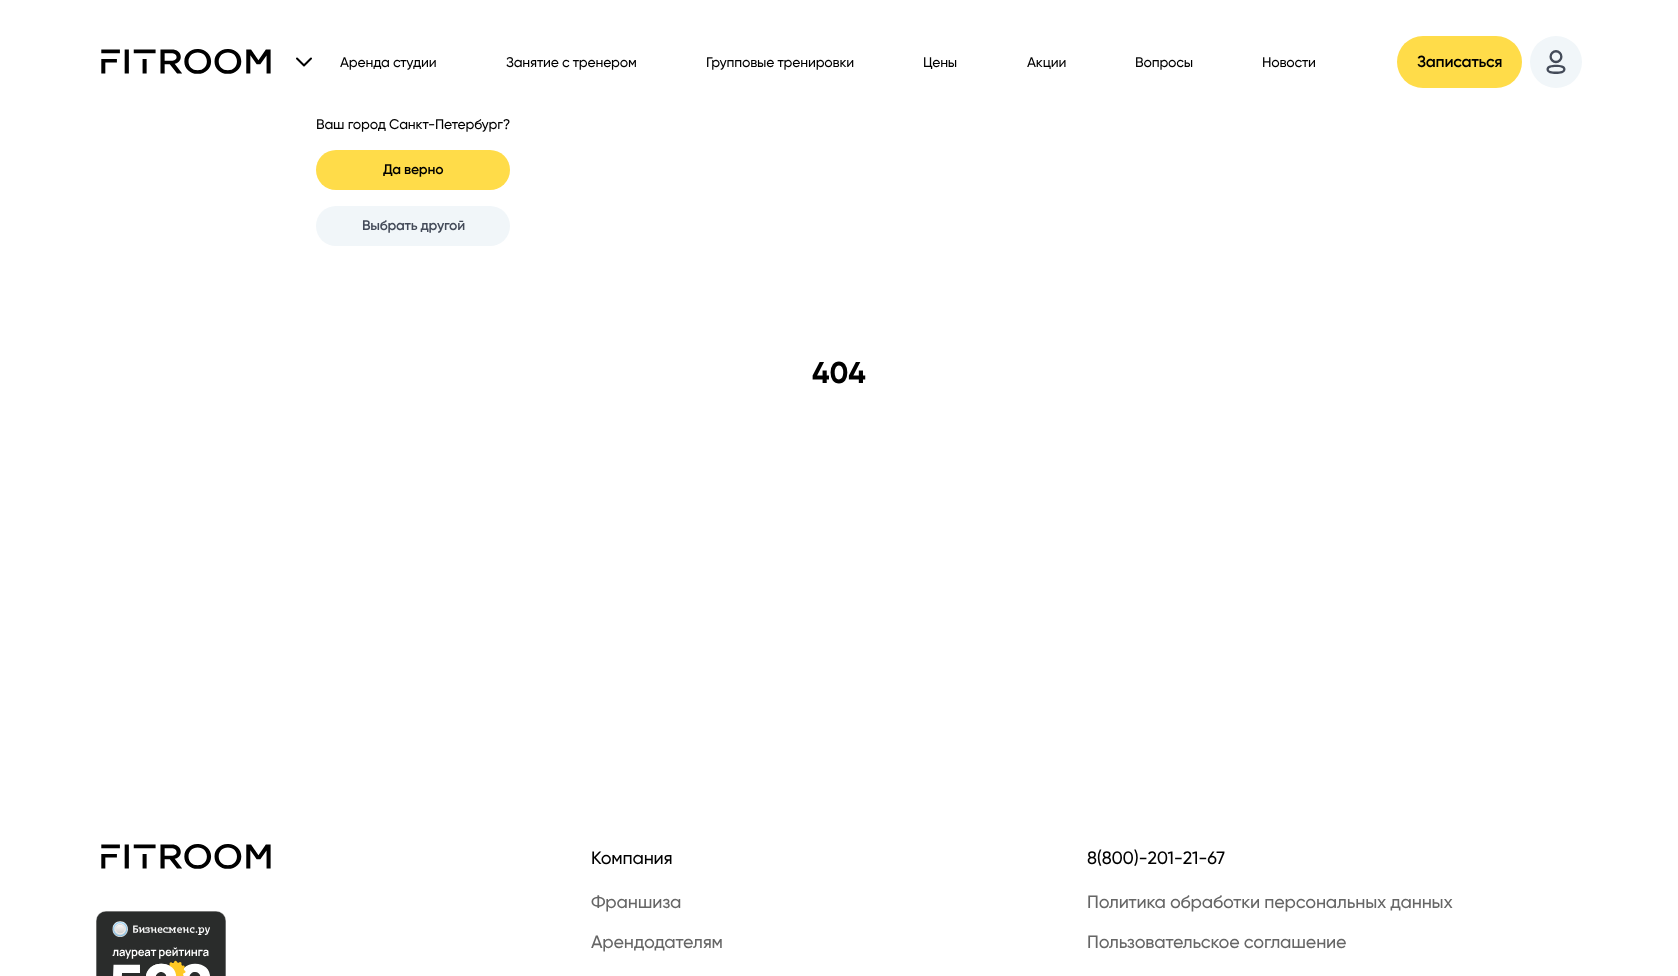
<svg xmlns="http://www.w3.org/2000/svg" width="1678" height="976">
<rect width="100%" height="100%" fill="#fff"/>
<text x="340" y="67" style="font-family:Gilroy;font-size:14px;font-weight:500;letter-spacing:-0.2px;fill:#000">Аренда студии</text>
<text x="506" y="67" style="font-family:Gilroy;font-size:14px;font-weight:500;letter-spacing:-0.2px;fill:#000">Занятие с тренером</text>
<text x="706" y="67" style="font-family:Gilroy;font-size:14px;font-weight:500;letter-spacing:-0.2px;fill:#000">Групповые тренировки</text>
<text x="923" y="67" style="font-family:Gilroy;font-size:14px;font-weight:500;letter-spacing:-0.2px;fill:#000">Цены</text>
<text x="1027" y="67" style="font-family:Gilroy;font-size:14px;font-weight:500;letter-spacing:-0.2px;fill:#000">Акции</text>
<text x="1135" y="67" style="font-family:Gilroy;font-size:14px;font-weight:500;letter-spacing:-0.2px;fill:#000">Вопросы</text>
<text x="1262" y="67" style="font-family:Gilroy;font-size:14px;font-weight:500;letter-spacing:-0.2px;fill:#000">Новости</text>
<rect x="1397" y="36" width="125" height="52" rx="26" fill="#ffdc49"/>
<text x="1417" y="67" style="font-family:Gilroy;font-size:16px;font-weight:600;letter-spacing:-0.25px;fill:#000">Записаться</text>
<circle cx="1556" cy="62" r="26" fill="#f1f6f9"/>
<image x="1546" y="50" width="20" height="24" href="media/1.png"/>
<image x="101" y="49" width="170" height="25" href="media/2.png"/>
<image x="296" y="57" width="16" height="10" href="media/3.png"/>
<text x="316" y="129" style="font-family:Gilroy;font-size:14px;font-weight:500;letter-spacing:-0.2px;fill:#000">Ваш город Санкт-Петербург?</text>
<rect x="316" y="150" width="194" height="40" rx="20" fill="#ffdc49"/>
<text x="383" y="174" style="font-family:Gilroy;font-size:14px;font-weight:600;letter-spacing:-0.25px;fill:#000">Да верно</text>
<rect x="316" y="206" width="194" height="40" rx="20" fill="#f1f6f9"/>
<text x="362" y="230" style="font-family:Gilroy;font-size:14px;font-weight:600;letter-spacing:-0.25px;fill:#444b59">Выбрать другой</text>
<text x="812" y="383" style="font-family:Gilroy;font-size:30px;font-weight:bold;fill:#000">404</text>
<image x="101" y="844" width="170" height="25" href="media/4.png"/>
<image x="96" y="911" width="130" height="65" href="media/5.png"/>
<text x="591" y="864" style="font-family:Gilroy;font-size:18px;font-weight:500;letter-spacing:-0.2px;fill:#000">Компания</text>
<text x="591" y="908" style="font-family:Gilroy;font-size:18px;font-weight:500;letter-spacing:-0.2px;fill:#666">Франшиза</text>
<text x="591" y="948" style="font-family:Gilroy;font-size:18px;font-weight:500;letter-spacing:-0.2px;fill:#666">Арендодателям</text>
<text x="1087" y="864" style="font-family:Gilroy;font-size:18px;font-weight:500;letter-spacing:-0.2px;fill:#000">8(800)-201-21-67</text>
<text x="1087" y="908" style="font-family:Gilroy;font-size:18px;font-weight:500;letter-spacing:-0.2px;fill:#666">Политика обработки персональных данных</text>
<text x="1087" y="948" style="font-family:Gilroy;font-size:18px;font-weight:500;letter-spacing:-0.2px;fill:#666">Пользовательское соглашение</text>
</svg>
